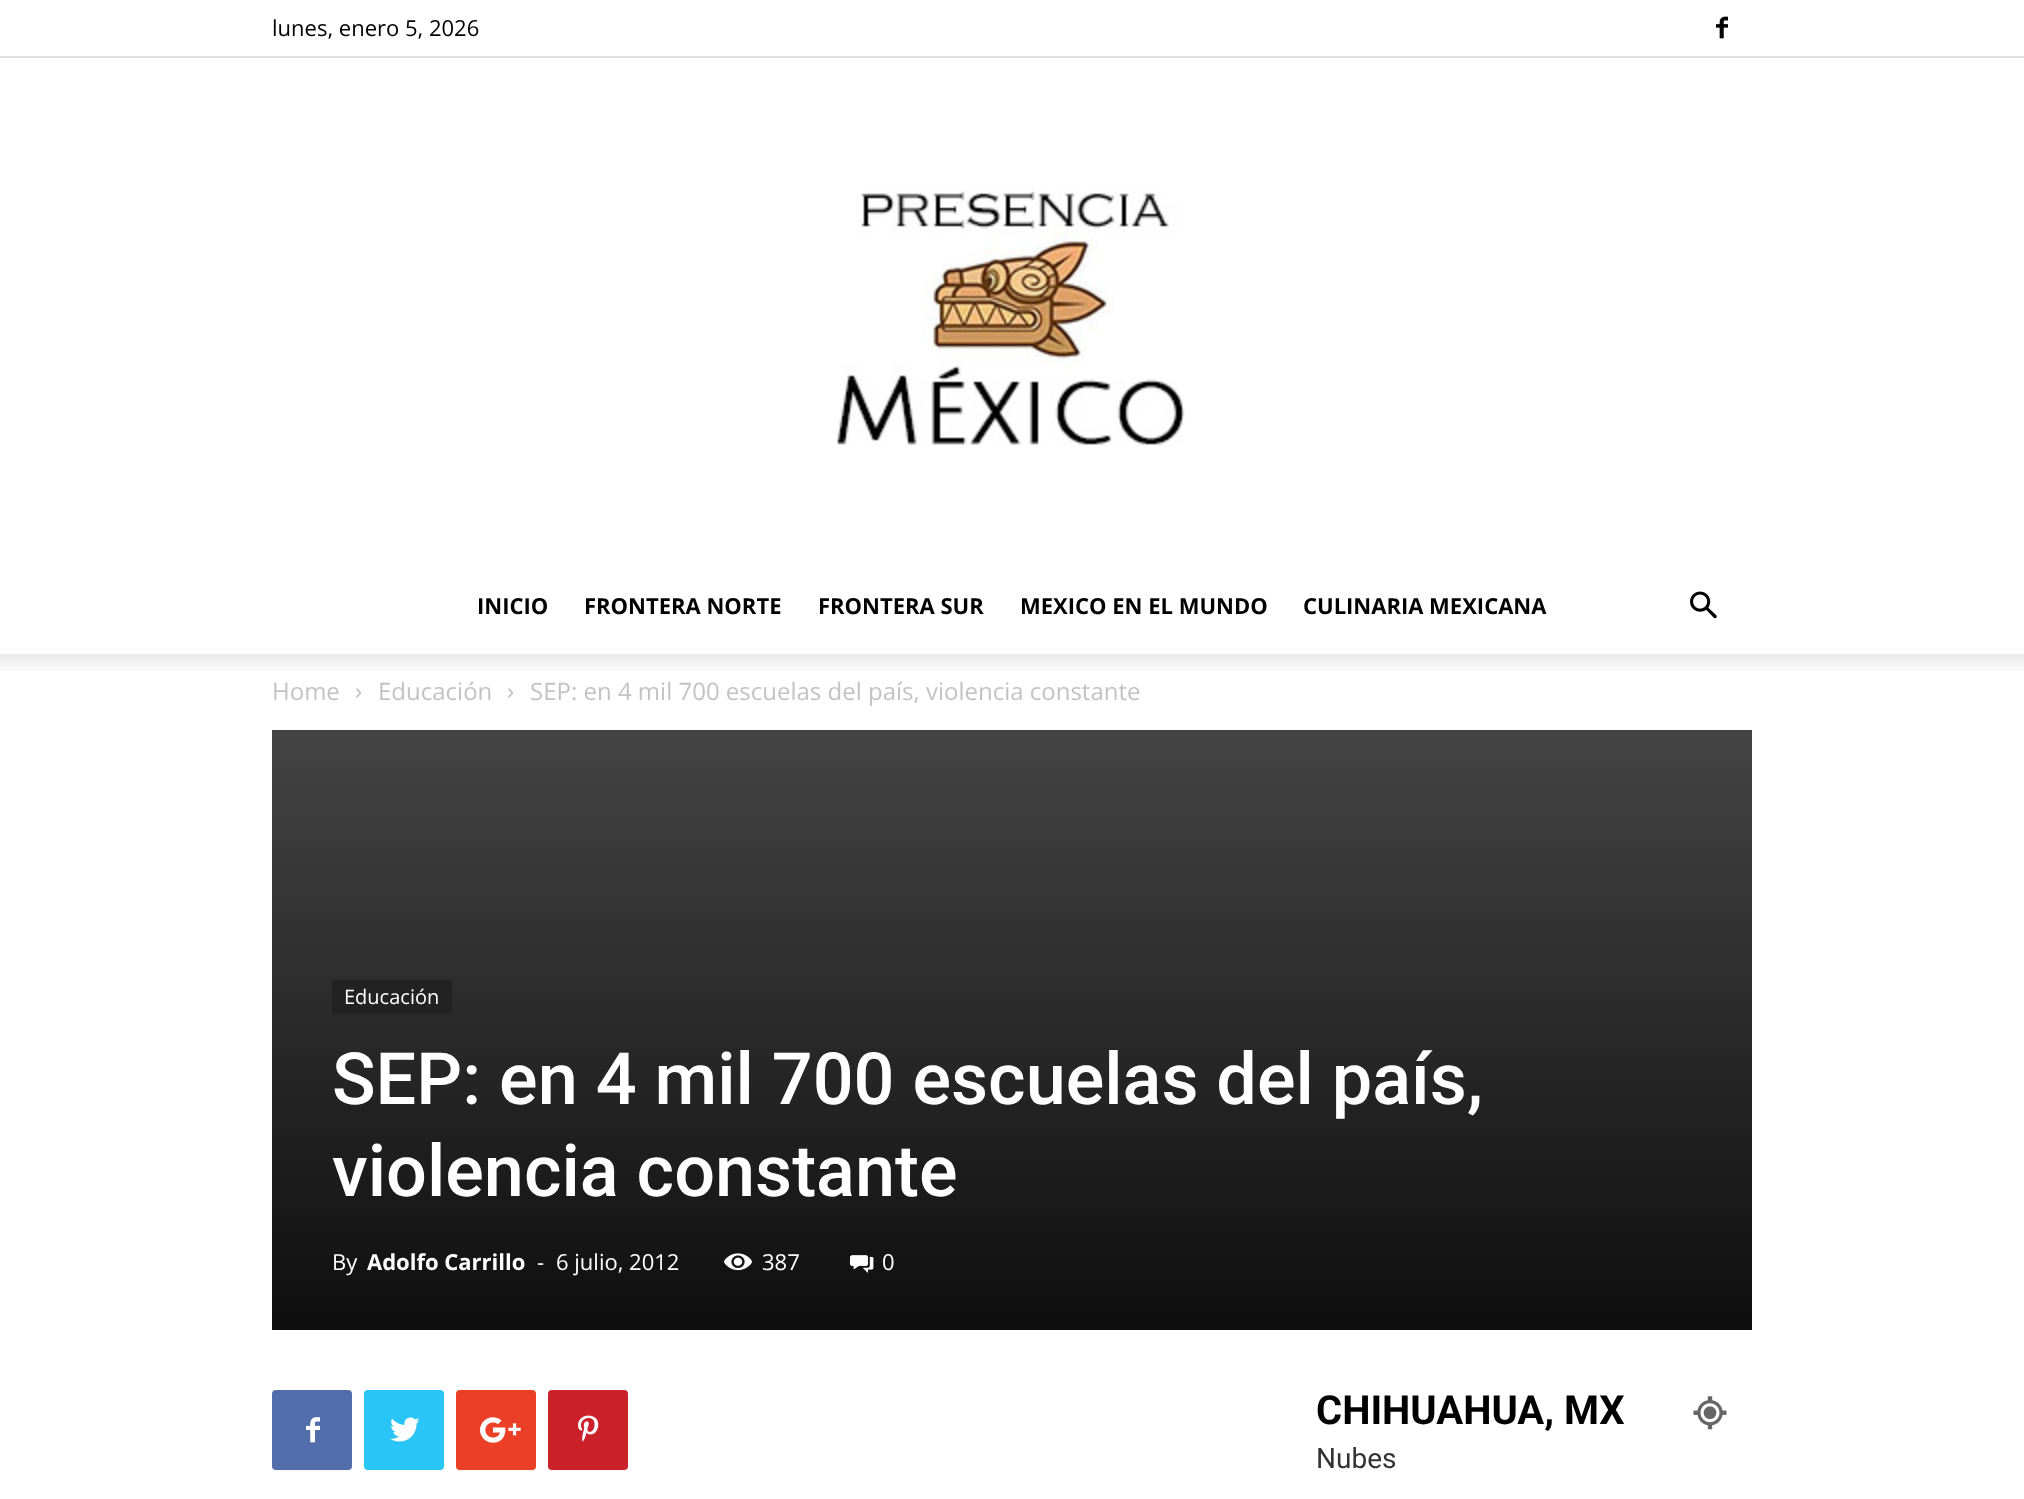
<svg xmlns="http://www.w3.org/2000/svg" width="2024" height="1499">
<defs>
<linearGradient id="g1" gradientUnits="userSpaceOnUse" x1="1012" y1="730" x2="1012" y2="1330"><stop offset="0" stop-color="#444"/><stop offset="1" stop-color="#0e0e0e"/></linearGradient>
</defs>
<rect width="100%" height="100%" fill="#fff"/>
<rect y="56" width="2024" height="2" fill="#e0e0e0"/>
<text x="272" y="36" style="font-family:Open Sans;font-size:22px;fill:#000">lunes, enero 5, 2026</text>
<image x="1716" y="16" width="12" height="23" href="media/1.png"/>
<image x="837" y="190" width="348" height="256" href="media/2.png"/>
<text x="477" y="614" style="font-family:Open Sans;font-size:22px;font-weight:bold;fill:#000">INICIO</text>
<text x="584" y="614" style="font-family:Open Sans;font-size:22px;font-weight:bold;fill:#000">FRONTERA NORTE</text>
<text x="818" y="614" style="font-family:Open Sans;font-size:22px;font-weight:bold;fill:#000">FRONTERA SUR</text>
<text x="1020" y="614" style="font-family:Open Sans;font-size:22px;font-weight:bold;fill:#000">MEXICO EN EL MUNDO</text>
<text x="1303" y="614" style="font-family:Open Sans;font-size:22px;font-weight:bold;fill:#000">CULINARIA MEXICANA</text>
<image x="1690" y="591" width="27" height="28" href="media/3.png"/>
<image x="0" y="654" width="2024" height="17" href="media/4.png"/>
<text x="272" y="700" style="font-family:Open Sans;font-size:24px;fill:#c3c3c3">Home</text>
<image x="356" y="688" width="6" height="10" href="media/5.png"/>
<text x="378" y="700" style="font-family:Open Sans;font-size:24px;fill:#c3c3c3">Educación</text>
<image x="508" y="688" width="6" height="10" href="media/5.png"/>
<text x="530" y="700" style="font-family:Open Sans;font-size:24px;fill:#c3c3c3">SEP: en 4 mil 700 escuelas del país, violencia constante</text>
<rect x="272" y="730" width="1480" height="600" fill="url(#g1)"/>
<rect x="332" y="980" width="120" height="34" fill="#222"/>
<text x="344" y="1004" style="font-family:Open Sans;font-size:20px;fill:#fff">Educación</text>
<text x="332" y="1104" style="font-family:Roboto;font-size:72px;font-weight:500;fill:#fff">SEP: en 4 mil 700 escuelas del país,</text>
<text x="332" y="1196" style="font-family:Roboto;font-size:72px;font-weight:500;fill:#fff">violencia constante</text>
<text x="332" y="1270" style="font-family:Open Sans;font-size:22px;fill:#fff">By</text>
<text x="367" y="1270" style="font-family:Open Sans;font-size:22px;font-weight:bold;fill:#fff">Adolfo Carrillo</text>
<text x="537" y="1270" style="font-family:Open Sans;font-size:22px;fill:#fff">-</text>
<text x="556" y="1270" style="font-family:Open Sans;font-size:22px;fill:#fff">6 julio, 2012</text>
<image x="724" y="1253" width="28" height="18" href="media/6.png"/>
<text x="762" y="1270" style="font-family:Open Sans;font-size:22px;fill:#fff">387</text>
<image x="850" y="1255" width="24" height="18" href="media/7.png"/>
<text x="882" y="1270" style="font-family:Open Sans;font-size:22px;fill:#fff">0</text>
<rect x="272" y="1390" width="80" height="80" rx="4" fill="#516eab"/>
<image x="306" y="1417" width="14" height="26" href="media/8.png"/>
<rect x="364" y="1390" width="80" height="80" rx="4" fill="#29c5f6"/>
<image x="390" y="1417" width="30" height="25" href="media/9.png"/>
<rect x="456" y="1390" width="80" height="80" rx="4" fill="#eb4026"/>
<image x="480" y="1417" width="41" height="26" href="media/10.png"/>
<rect x="548" y="1390" width="80" height="80" rx="4" fill="#ca212a"/>
<image x="578" y="1415" width="21" height="27" href="media/11.png"/>
<text x="1316" y="1424" style="font-family:Roboto;font-size:40px;font-weight:bold;fill:#000">CHIHUAHUA, MX</text>
<image x="1693" y="1396" width="34" height="34" href="media/12.png"/>
<text x="1316" y="1468" style="font-family:Roboto;font-size:28px;fill:#333">Nubes</text>
</svg>
